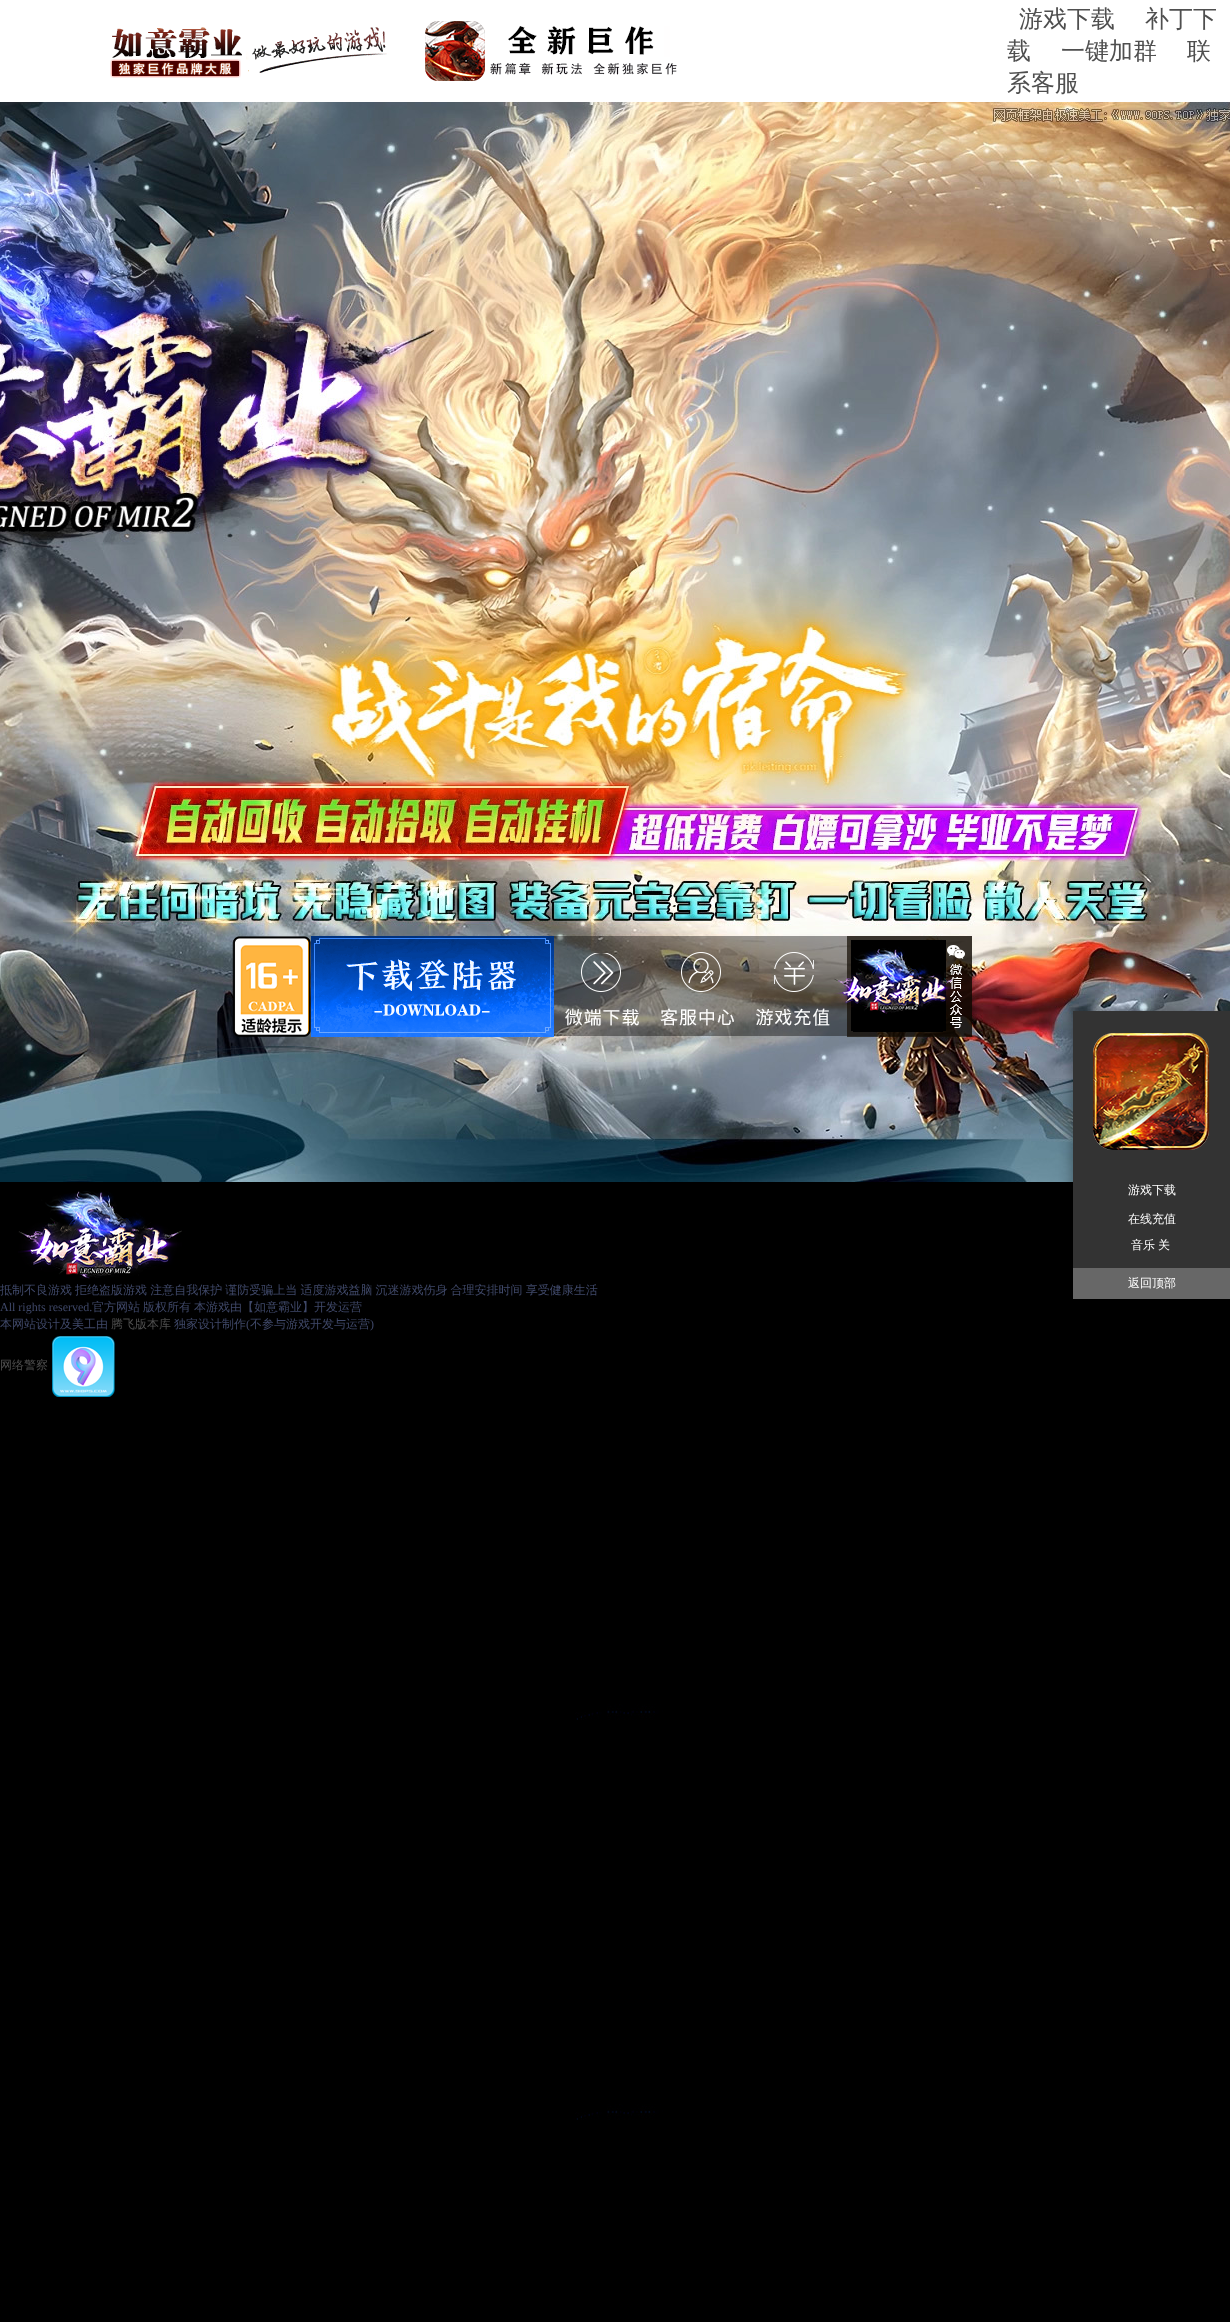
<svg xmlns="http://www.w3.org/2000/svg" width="1230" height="2322">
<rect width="100%" height="100%" fill="#fff"/>
<image x="0" y="1399" width="1230" height="923" href="media/1.png"/>
<image x="110" y="21" width="567" height="60" href="media/2.png"/>
<text x="1019" y="27" style="font-family:WenQuanYi Zen Hei;font-size:24px;font-weight:500;fill:#4f4f4f">游戏下载</text>
<text x="1145" y="27" style="font-family:WenQuanYi Zen Hei;font-size:24px;font-weight:500;fill:#4f4f4f">补丁下</text>
<text x="1007" y="59" style="font-family:WenQuanYi Zen Hei;font-size:24px;font-weight:500;fill:#4f4f4f">载</text>
<text x="1061" y="59" style="font-family:WenQuanYi Zen Hei;font-size:24px;font-weight:500;fill:#4f4f4f">一键加群</text>
<text x="1187" y="59" style="font-family:WenQuanYi Zen Hei;font-size:24px;font-weight:500;fill:#4f4f4f">联</text>
<text x="1007" y="91" style="font-family:WenQuanYi Zen Hei;font-size:24px;font-weight:500;fill:#4f4f4f">系客服</text>
<image x="0" y="102" width="1230" height="1080" href="media/3.png"/>
<image x="232" y="936" width="740" height="102" href="media/4.png"/>
<rect y="1182" width="1230" height="217" fill="#000"/>
<rect x="1073" y="1014" width="157" height="288" fill="#00000066" filter="blur(7px)"/>
<rect x="1073" y="1011" width="157" height="257" fill="#333"/>
<image x="1093" y="1033" width="117" height="117" href="media/5.png"/>
<text x="1128" y="1194" style="font-family:WenQuanYi Zen Hei;font-size:12px;font-weight:500;fill:#fff">游戏下载</text>
<text x="1128" y="1223" style="font-family:WenQuanYi Zen Hei;font-size:12px;font-weight:500;fill:#fff">在线充值</text>
<text x="1131" y="1249" word-spacing="-0.5" style="font-family:WenQuanYi Zen Hei;font-size:12px;font-weight:500;fill:#fff">音乐 关</text>
<rect x="1073" y="1268" width="157" height="31" fill="#676767"/>
<text x="1128" y="1287" style="font-family:WenQuanYi Zen Hei;font-size:12px;font-weight:500;fill:#fff">返回顶部</text>
<image x="18" y="1191" width="164" height="88" href="media/6.png"/>
<text x="0" y="1294" word-spacing="-0.5" style="font-family:WenQuanYi Zen Hei;font-size:12px;font-weight:500;fill:#3f4869">抵制不良游戏 拒绝盗版游戏 注意自我保护 谨防受骗上当 适度游戏益脑 沉迷游戏伤身 合理安排时间 享受健康生活</text>
<text x="0" y="1311" style="font-family:Liberation Serif;font-size:12px;fill:#3f4869">All rights reserved.</text>
<text x="92" y="1311" style="font-family:WenQuanYi Zen Hei;font-size:12px;font-weight:500;fill:#3f4869">官方网站</text>
<text x="143" y="1311" style="font-family:WenQuanYi Zen Hei;font-size:12px;font-weight:500;fill:#3f4869">版权所有</text>
<text x="194" y="1311" style="font-family:WenQuanYi Zen Hei;font-size:12px;font-weight:500;fill:#3f4869">本游戏由【如意霸业】开发运营</text>
<text x="0" y="1328" style="font-family:WenQuanYi Zen Hei;font-size:12px;font-weight:500;fill:#3f4869">本网站设计及美工由</text>
<text x="111" y="1328" style="font-family:WenQuanYi Zen Hei;font-size:12px;font-weight:500;fill:#4f4f4f">腾飞版本库</text>
<text x="174" y="1328" style="font-family:WenQuanYi Zen Hei;font-size:12px;font-weight:500;fill:#3f4869">独家设计制作</text>
<text x="246" y="1328" style="font-family:Liberation Serif;font-size:12px;fill:#3f4869">(</text>
<text x="250" y="1328" style="font-family:WenQuanYi Zen Hei;font-size:12px;font-weight:500;fill:#3f4869">不参与游戏开发与运营</text>
<text x="370" y="1328" style="font-family:Liberation Serif;font-size:12px;fill:#3f4869">)</text>
<text x="0" y="1369" style="font-family:WenQuanYi Zen Hei;font-size:12px;font-weight:500;fill:#4f4f4f">网络警察</text>
<image x="52" y="1336" width="63" height="61" href="media/7.png"/>
</svg>
